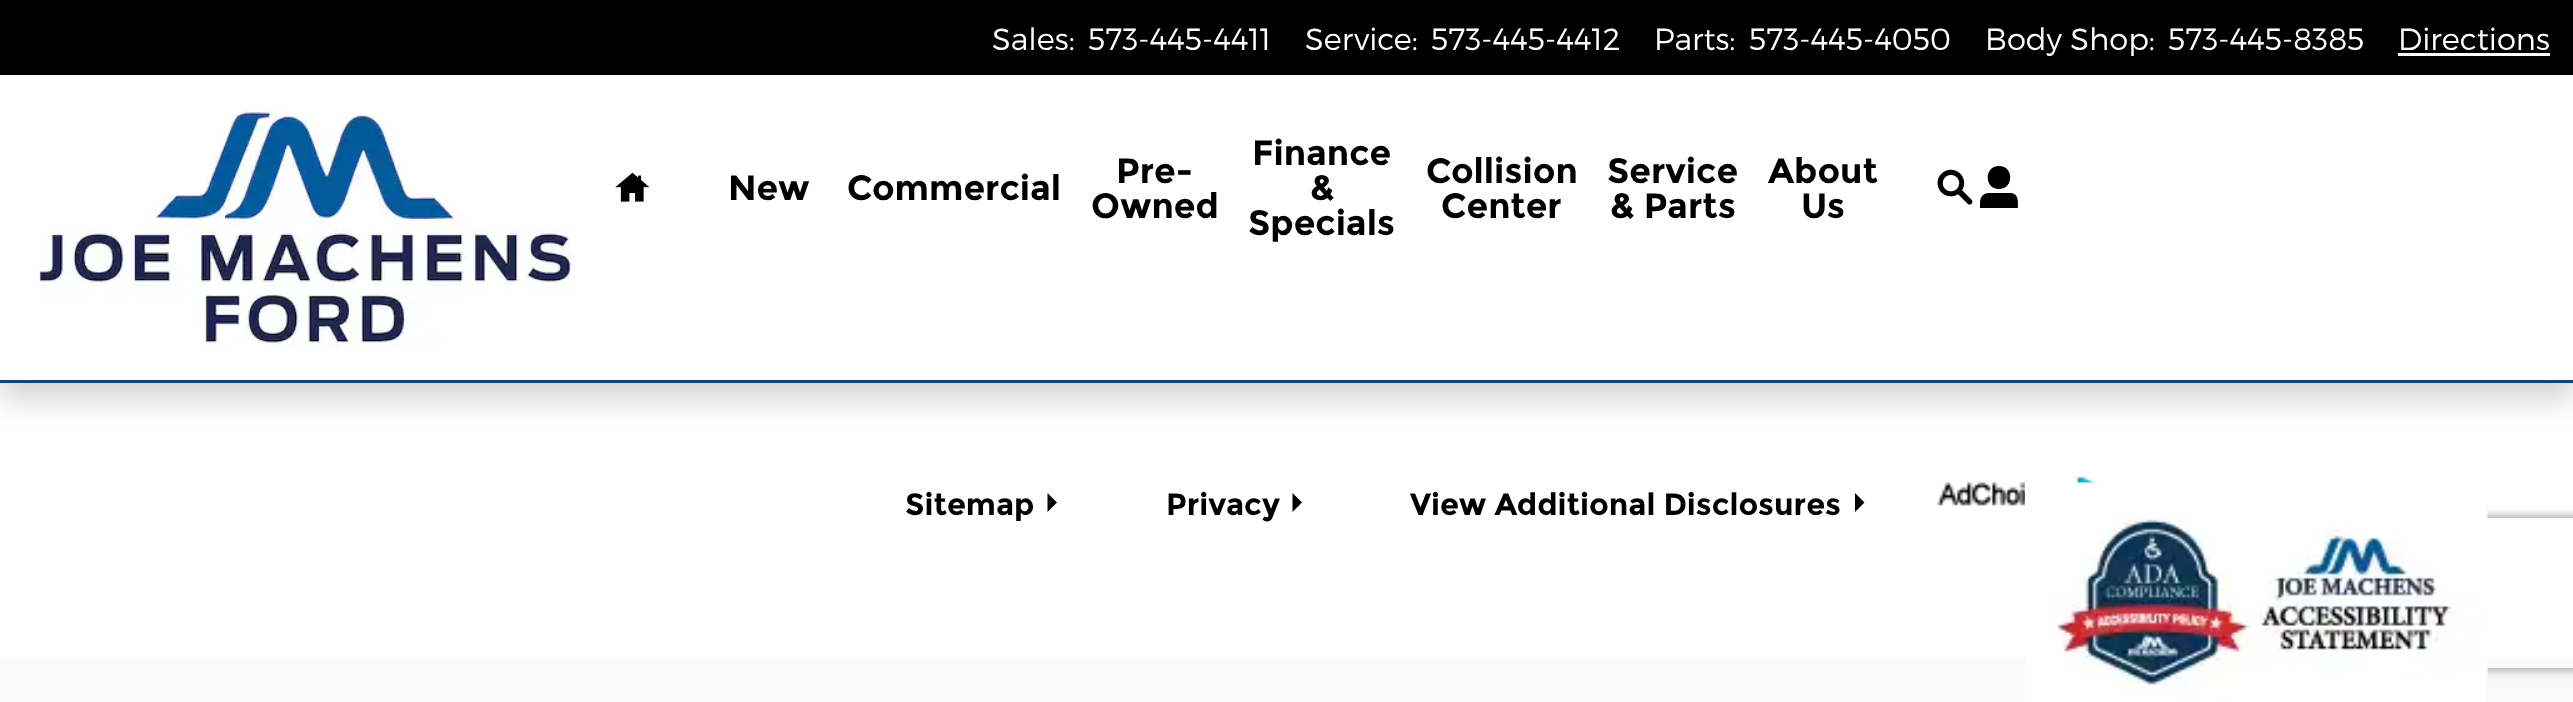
<svg xmlns="http://www.w3.org/2000/svg" width="2573" height="702">
<defs>
<clipPath id="clip1"><path d="M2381 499h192v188h-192zm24 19h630c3 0 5 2 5 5v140c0 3-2 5-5 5h-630c-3 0-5-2-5-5v-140c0-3 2-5 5-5z" clip-rule="evenodd"/></clipPath>
</defs>
<rect width="100%" height="100%" fill="#f9f9fa"/>
<rect y="383" width="2573" height="275" fill="#fff"/>
<rect y="15" width="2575" height="383" fill="#0000002e" filter="blur(15px)"/>
<rect y="75" width="2573" height="305" fill="#fff"/>
<rect y="380" width="2573" height="3" fill="#0a468d"/>
<rect width="2573" height="75" fill="#000"/>
<text x="992" y="50" style="font-family:Montserrat;font-size:30.6px;font-weight:300;fill:#fff">Sales:</text>
<text x="1088" y="50" style="font-family:Montserrat;font-size:30.6px;font-weight:300;fill:#fff">573-445-4411</text>
<text x="1305" y="50" style="font-family:Montserrat;font-size:30.6px;font-weight:300;fill:#fff">Service:</text>
<text x="1431" y="50" style="font-family:Montserrat;font-size:30.6px;font-weight:300;fill:#fff">573-445-4412</text>
<text x="1654" y="50" style="font-family:Montserrat;font-size:30.6px;font-weight:300;fill:#fff">Parts:</text>
<text x="1749" y="50" style="font-family:Montserrat;font-size:30.6px;font-weight:300;fill:#fff">573-445-4050</text>
<text x="1985" y="50" style="font-family:Montserrat;font-size:30.6px;font-weight:300;fill:#fff">Body Shop:</text>
<text x="2168" y="50" style="font-family:Montserrat;font-size:30.6px;font-weight:300;fill:#fff">573-445-8385</text>
<text x="2398" y="50" style="font-family:Montserrat;font-size:30.6px;font-weight:300;fill:#fff">Directions</text>
<rect x="2398" y="53" width="152" height="3" fill="#fff"/>
<image x="39" y="105" width="535" height="245" href="media/1.png"/>
<image x="615" y="172" width="35" height="30" href="media/2.png"/>
<text x="728" y="200" style="font-family:Montserrat;font-size:35px;font-weight:bold;fill:#000">New</text>
<text x="847" y="200" style="font-family:Montserrat;font-size:35px;font-weight:bold;fill:#000">Commercial</text>
<text x="1116" y="183" style="font-family:Montserrat;font-size:35px;font-weight:bold;fill:#000">Pre-</text>
<text x="1091" y="218" style="font-family:Montserrat;font-size:35px;font-weight:bold;fill:#000">Owned</text>
<text x="1252" y="165" style="font-family:Montserrat;font-size:35px;font-weight:bold;fill:#000">Finance</text>
<text x="1310" y="200" style="font-family:Montserrat;font-size:35px;font-weight:bold;fill:#000">&amp;</text>
<text x="1248" y="235" style="font-family:Montserrat;font-size:35px;font-weight:bold;fill:#000">Specials</text>
<text x="1426" y="183" style="font-family:Montserrat;font-size:35px;font-weight:bold;fill:#000">Collision</text>
<text x="1441" y="218" style="font-family:Montserrat;font-size:35px;font-weight:bold;fill:#000">Center</text>
<text x="1607" y="183" style="font-family:Montserrat;font-size:35px;font-weight:bold;fill:#000">Service</text>
<text x="1610" y="218" style="font-family:Montserrat;font-size:35px;font-weight:bold;fill:#000">&amp; Parts</text>
<text x="1768" y="183" style="font-family:Montserrat;font-size:35px;font-weight:bold;fill:#000">About</text>
<text x="1801" y="218" style="font-family:Montserrat;font-size:35px;font-weight:bold;fill:#000">Us</text>
<image x="1937" y="169" width="36" height="36" href="media/3.png"/>
<path d="M2010 193c9 0 8 9 8 15h-38c0-9 0-15 11-15zm-11-27c15 0 15 23 0 23c-15 0-15-23 0-23z" fill="#000"/>
<text x="905" y="515" style="font-family:Montserrat;font-size:30.6px;font-weight:bold;fill:#000">Sitemap</text>
<path d="M1047.5 493v19l9.5-9.5z" fill="#000"/>
<text x="1166" y="515" style="font-family:Montserrat;font-size:30.6px;font-weight:bold;fill:#000">Privacy</text>
<path d="M1292.5 493v19l9.5-9.5z" fill="#000"/>
<text x="1410" y="515" style="font-family:Montserrat;font-size:30.6px;font-weight:bold;fill:#000">View Additional Disclosures</text>
<path d="M1855 493v19l9.5-9.5z" fill="#000"/>
<image x="1936" y="476" width="175" height="35" href="media/4.png"/>
<g clip-path="url(#clip1)">
<rect x="2400" y="518" width="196" height="150" rx="5" fill="#808080" filter="blur(6px)"/>
</g>
<image x="2025" y="482" width="463" height="220" href="media/5.png"/>
</svg>
